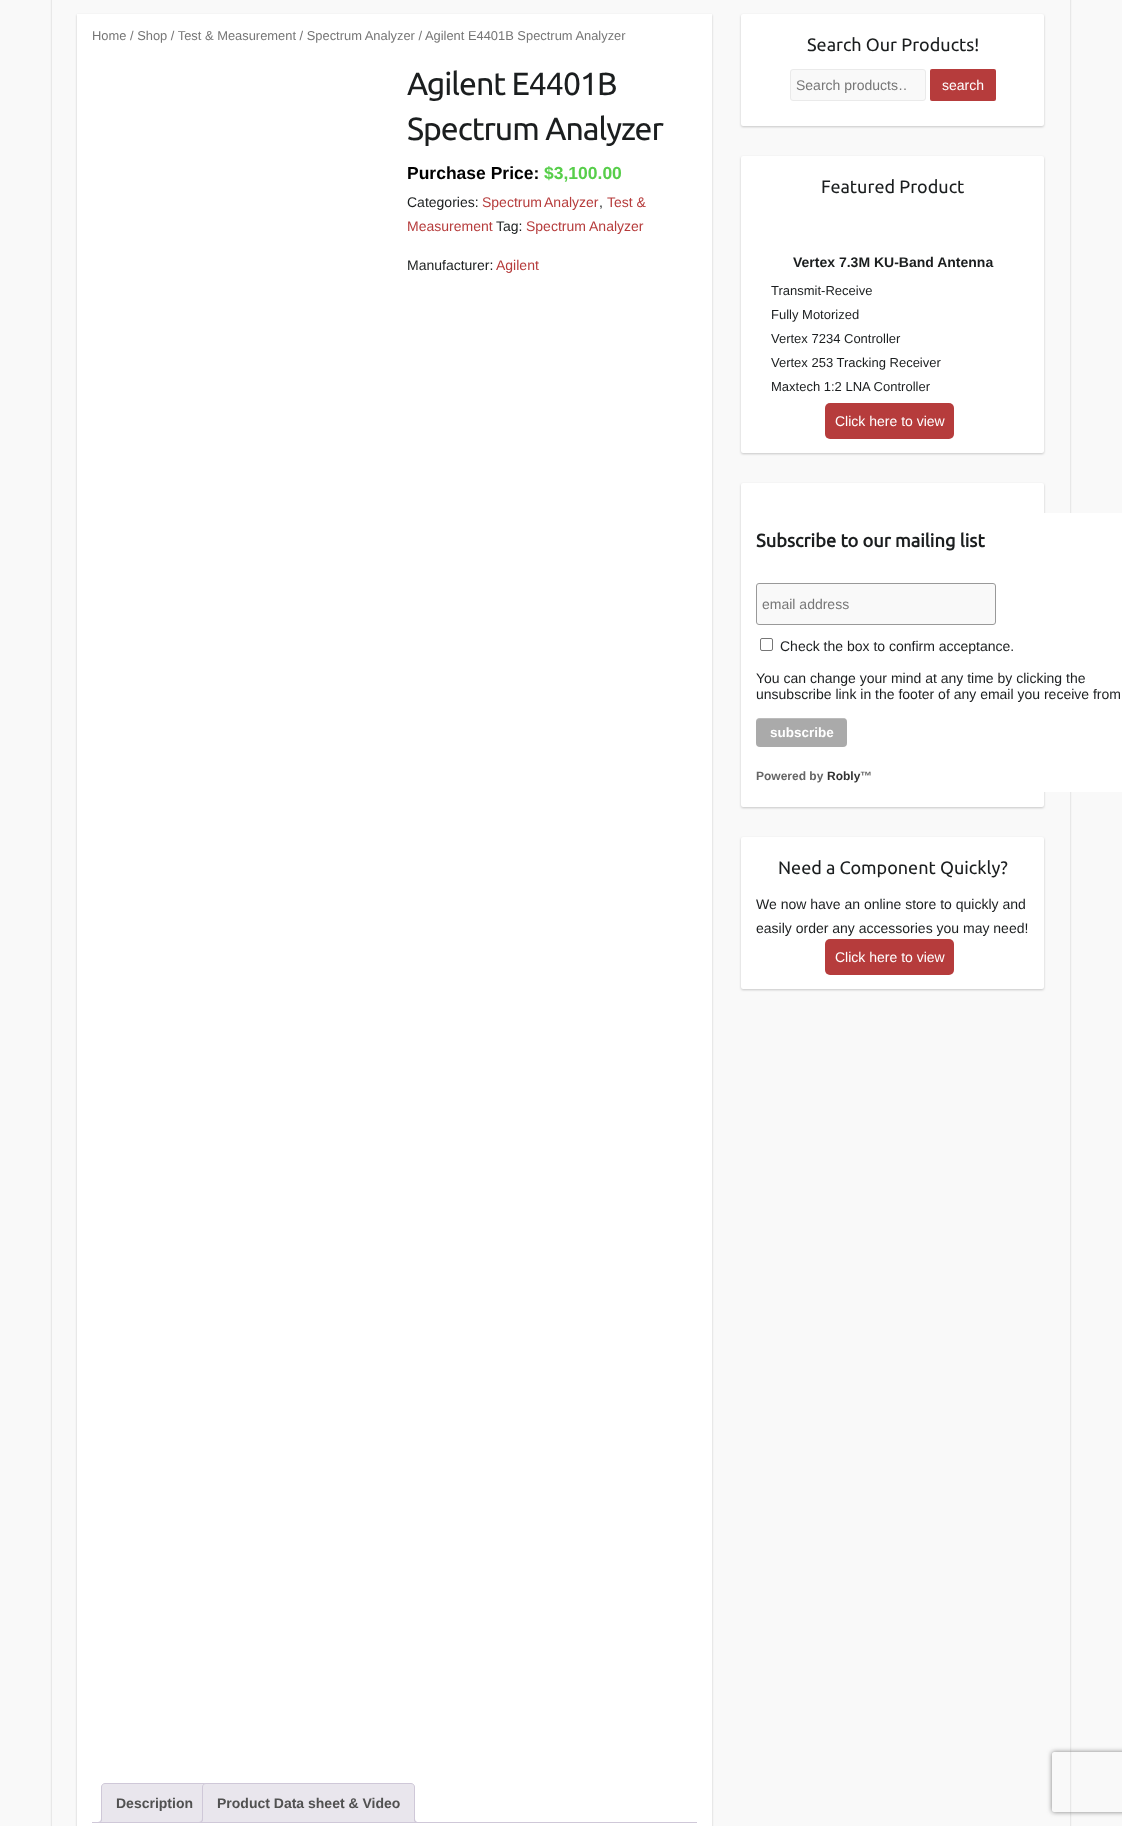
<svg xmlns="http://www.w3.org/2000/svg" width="1122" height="1826">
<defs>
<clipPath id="clip1"><path d="M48 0h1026v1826h-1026zm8-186h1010c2 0 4 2 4 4v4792c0 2-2 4-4 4h-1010c-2 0-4-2-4-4v-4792c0-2 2-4 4-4z" clip-rule="evenodd"/></clipPath>
<clipPath id="clip2"><rect x="92" y="1783" width="605" height="40"/></clipPath>
<clipPath id="clip3"><rect x="796" y="77" width="110" height="16"/></clipPath>
<clipPath id="clip4"><path d="M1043 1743h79v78h-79zm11 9h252c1 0 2 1 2 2v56c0 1-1 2-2 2h-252c-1 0-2-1-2-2v-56c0-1 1-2 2-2z" clip-rule="evenodd"/></clipPath>
</defs>
<rect width="100%" height="100%" fill="#f9f9f9"/>
<g clip-path="url(#clip1)">
<rect x="52" y="-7" width="1018" height="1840" rx="4" fill="#00000033" filter="blur(1px)"/>
</g>
<rect x="77" y="15" width="635" height="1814" fill="#00000033" filter="blur(1px)"/>
<rect x="77" y="14" width="635" height="1812" fill="#fff"/>
<text x="92" y="40" style="font-family:Liberation Sans;font-size:12.9px;fill:#767676">Home / Shop / Test &amp; Measurement / Spectrum Analyzer / Agilent E4401B Spectrum Analyzer</text>
<text x="407" y="95" style="font-family:Ubuntu;font-size:32px;letter-spacing:-1px;fill:#1b1e1f">Agilent E4401B</text>
<text x="407" y="140" style="font-family:Ubuntu;font-size:32px;letter-spacing:-1px;fill:#1b1e1f">Spectrum Analyzer</text>
<text x="407" y="179" style="font-family:Liberation Sans;font-size:17.5px;font-weight:bold;fill:#000">Purchase Price:</text>
<text x="544" y="179" style="font-family:Liberation Sans;font-size:17.5px;font-weight:bold;fill:#57ce4a">$3,100.00</text>
<text x="407" y="207" style="font-family:Liberation Sans;font-size:14px;fill:#1b1e1f">Categories:</text>
<text x="482" y="207" word-spacing="-1" style="font-family:Liberation Sans;font-size:14px;fill:#b63c3c">Spectrum Analyzer</text>
<text x="599" y="207" style="font-family:Liberation Sans;font-size:14px;fill:#1b1e1f">,</text>
<text x="607" y="207" style="font-family:Liberation Sans;font-size:14px;fill:#b63c3c">Test &amp;</text>
<text x="407" y="231" style="font-family:Liberation Sans;font-size:14px;fill:#b63c3c">Measurement</text>
<text x="496" y="231" style="font-family:Liberation Sans;font-size:14px;fill:#1b1e1f">Tag:</text>
<text x="526" y="231" style="font-family:Liberation Sans;font-size:14px;fill:#b63c3c">Spectrum Analyzer</text>
<text x="407" y="270" style="font-family:Liberation Sans;font-size:14px;fill:#1b1e1f">Manufacturer:</text>
<text x="496" y="270" style="font-family:Liberation Sans;font-size:14px;fill:#b63c3c">Agilent</text>
<path d="M105 1783.5h99c2 0 3.5 1.5 3.5 3.5v35.5h-106v-35.5c0-2 1.5-3.5 3.5-3.5z" fill="#e9e6ed" stroke="#cfc8d8"/>
<text x="116" y="1808" style="font-family:Liberation Sans;font-size:14px;font-weight:bold;fill:#515151">Description</text>
<g clip-path="url(#clip2)">
<path d="M99 1823v2c3.5 0 5-1.5 5-5h-2c-.5 1.5-1.5 2.5-3 3z" fill="#e9e6ed"/>
</g>
<path d="M97 1818h5c0 3.5-1.5 5-5 5zm0 0h4c0 3-1 4-4 4z" fill="#cfc8d8" fill-rule="evenodd"/>
<path d="M206 1783.5h205c2 0 3.5 1.5 3.5 3.5v35.5h-212v-35.5c0-2 1.5-3.5 3.5-3.5z" fill="#e9e6ed" stroke="#cfc8d8"/>
<text x="217" y="1808" style="font-family:Liberation Sans;font-size:14px;font-weight:bold;fill:#515151">Product Data sheet &amp; Video</text>
<g clip-path="url(#clip2)">
<path d="M200 1823v2c3.5 0 5-1.5 5-5h-2c-.5 1.5-1.5 2.5-3 3z" fill="#e9e6ed"/>
</g>
<path d="M198 1818h5c0 3.5-1.5 5-5 5zm0 0h4c0 3-1 4-4 4z" fill="#cfc8d8" fill-rule="evenodd"/>
<g clip-path="url(#clip2)">
<path d="M412 1820c0 3.5 1.5 5 5 5v-2c-1.5-.5-2.5-1.5-3-3z" fill="#e9e6ed"/>
</g>
<path d="M414 1818h5v5c-2.5 0-5-1-5-4zm1 0h4v4c-2 0-4-.5-4-3z" fill="#cfc8d8" fill-rule="evenodd"/>
<rect x="92" y="1822" width="605" height="1" fill="#cfc8d8"/>
<rect x="741" y="15" width="303" height="112" rx="2" fill="#00000033" filter="blur(1px)"/>
<rect x="741" y="14" width="303" height="112" rx="2" fill="#fff"/>
<text x="807" y="51" style="font-family:Ubuntu;font-size:18px;fill:#1b1e1f">Search Our Products!</text>
<rect x="790.5" y="69.5" width="135" height="31" rx="2.5" fill="#f9f9f9" stroke="#eaeaea"/>
<g clip-path="url(#clip3)">
<text x="796" y="90" style="font-family:Liberation Sans;font-size:14px;fill:#767676">Search products…</text>
</g>
<rect x="930" y="69" width="66" height="32" rx="2" fill="#b63c3c"/>
<text x="942" y="90" style="font-family:Liberation Sans;font-size:14px;fill:#fff">search</text>
<rect x="741" y="157" width="303" height="297" rx="2" fill="#00000033" filter="blur(1px)"/>
<rect x="741" y="156" width="303" height="297" rx="2" fill="#fff"/>
<text x="821" y="193" style="font-family:Ubuntu;font-size:18px;fill:#1b1e1f">Featured Product</text>
<text x="793" y="267" style="font-family:Liberation Sans;font-size:14px;font-weight:bold;fill:#1b1e1f">Vertex 7.3M KU-Band Antenna</text>
<text x="771" y="295" style="font-family:Liberation Sans;font-size:13px;fill:#1b1e1f">Transmit-Receive</text>
<text x="771" y="319" style="font-family:Liberation Sans;font-size:13px;fill:#1b1e1f">Fully Motorized</text>
<text x="771" y="343" style="font-family:Liberation Sans;font-size:13px;fill:#1b1e1f">Vertex 7234 Controller</text>
<text x="771" y="367" style="font-family:Liberation Sans;font-size:13px;fill:#1b1e1f">Vertex 253 Tracking Receiver</text>
<text x="771" y="391" style="font-family:Liberation Sans;font-size:13px;fill:#1b1e1f">Maxtech 1:2 LNA Controller</text>
<rect x="825" y="403" width="129" height="36" rx="5" fill="#b63c3c"/>
<text x="835" y="426" style="font-family:Liberation Sans;font-size:14px;fill:#fff">Click here to view</text>
<rect x="741" y="484" width="303" height="324" rx="2" fill="#00000033" filter="blur(1px)"/>
<rect x="741" y="483" width="303" height="324" rx="2" fill="#fff"/>
<rect x="1044" y="513" width="78" height="279" fill="#fff"/>
<text x="756" y="547" style="font-family:Ubuntu;font-size:18.25px;font-weight:bold;fill:#1b1e1f">Subscribe to our mailing list</text>
<rect x="756.5" y="583.5" width="239" height="41" rx="2.5" fill="#f9f9f9" stroke="#999"/>
<text x="762" y="609" style="font-family:Liberation Sans;font-size:14px;fill:#767676">email address</text>
<rect x="760.5" y="638.5" width="12" height="12" rx="1.5" fill="none" stroke="#767676"/>
<text x="780" y="651" style="font-family:Liberation Sans;font-size:14px;fill:#1b1e1f">Check the box to confirm acceptance.</text>
<text x="756" y="683" style="font-family:Liberation Sans;font-size:14px;fill:#1b1e1f">You can change your mind at any time by clicking the</text>
<text x="756" y="699" style="font-family:Liberation Sans;font-size:14px;fill:#1b1e1f">unsubscribe link in the footer of any email you receive from</text>
<rect x="756" y="718" width="91" height="29" rx="4" fill="#aaa"/>
<path d="M760 719h85l1 1c0-1-2-2-3-2h-83c-2 0-4 2-4 4c0-2 2-3 4-3z" fill="#ffffff33"/>
<text x="770" y="737" style="font-family:Liberation Sans;font-size:13.5px;font-weight:bold;fill:#fff">subscribe</text>
<text x="756" y="780" style="font-family:Liberation Sans;font-size:12px;font-weight:bold;fill:#666">Powered by</text>
<text x="827" y="780" style="font-family:Liberation Sans;font-size:12px;font-weight:bold;fill:#333">Robly</text>
<text x="860" y="780" style="font-family:Liberation Sans;font-size:12px;font-weight:bold;fill:#666">™</text>
<rect x="741" y="838" width="303" height="152" rx="2" fill="#00000033" filter="blur(1px)"/>
<rect x="741" y="837" width="303" height="152" rx="2" fill="#fff"/>
<text x="778" y="874" style="font-family:Ubuntu;font-size:18px;fill:#1b1e1f">Need a Component Quickly?</text>
<text x="756" y="909" style="font-family:Liberation Sans;font-size:14px;fill:#1b1e1f">We now have an online store to quickly and</text>
<text x="756" y="933" style="font-family:Liberation Sans;font-size:14px;fill:#1b1e1f">easily order any accessories you may need!</text>
<rect x="825" y="939" width="129" height="36" rx="5" fill="#b63c3c"/>
<text x="835" y="962" style="font-family:Liberation Sans;font-size:14px;fill:#fff">Click here to view</text>
<g clip-path="url(#clip4)">
<rect x="1052" y="1752" width="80" height="60" rx="2" fill="#808080" filter="blur(2.5px)"/>
</g>
</svg>
